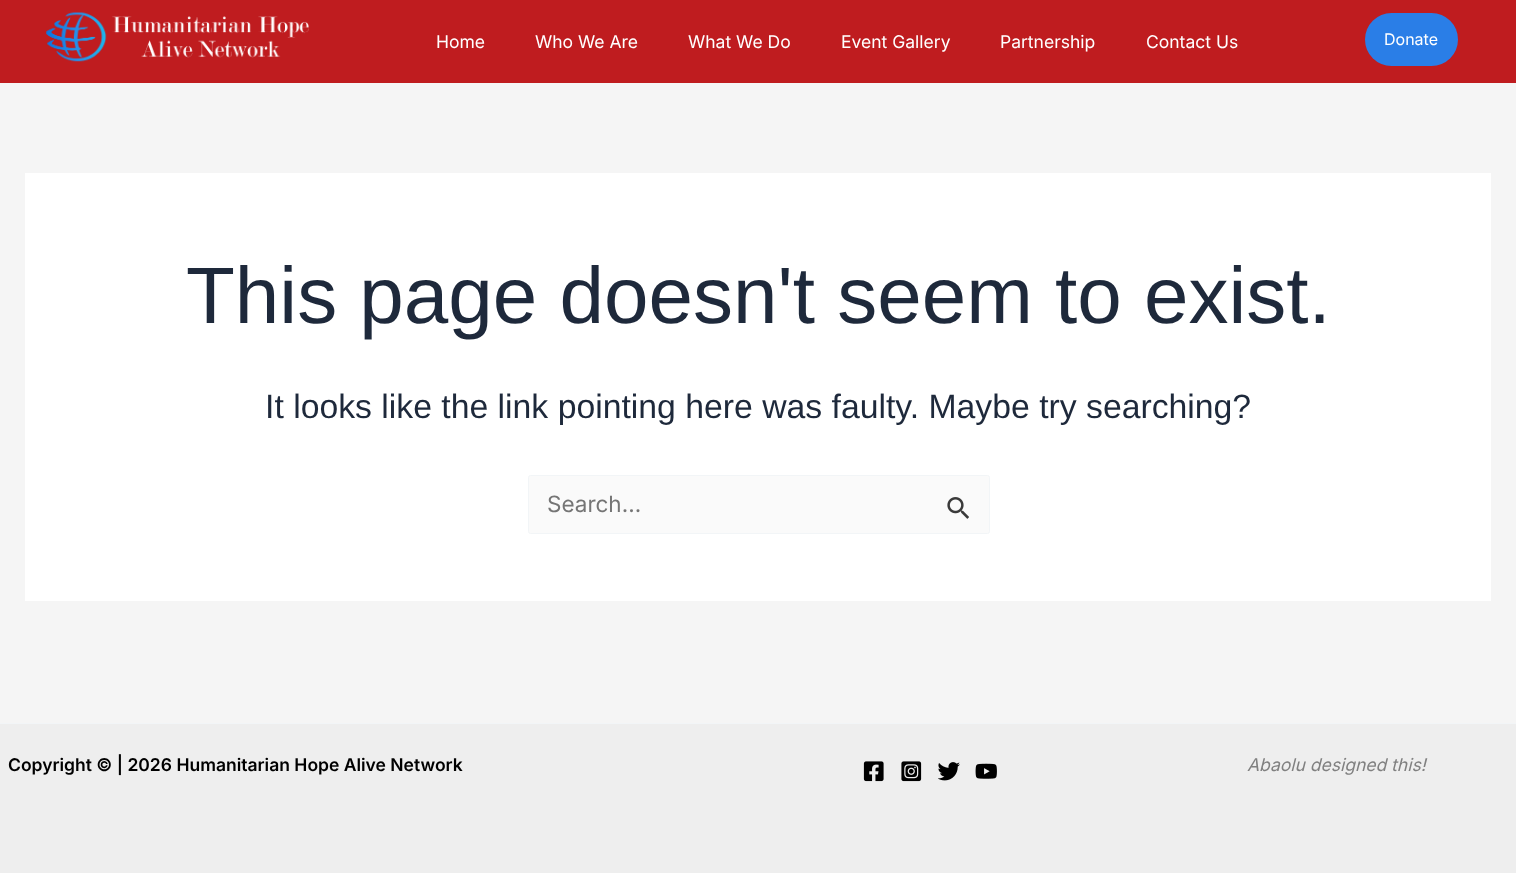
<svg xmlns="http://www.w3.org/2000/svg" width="1516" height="873">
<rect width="100%" height="100%" fill="#f5f5f5"/>
<rect width="1516" height="83" fill="#bf1c1f"/>
<image x="46" y="12" width="263" height="50" href="media/1.png"/>
<text x="436" y="48" style="font-family:Inter;font-size:17.5px;fill:#fff">Home</text>
<text x="535" y="48" style="font-family:Inter;font-size:17.5px;fill:#fff">Who We Are</text>
<text x="688" y="48" style="font-family:Inter;font-size:17.5px;fill:#fff">What We Do</text>
<text x="841" y="48" style="font-family:Inter;font-size:17.5px;fill:#fff">Event Gallery</text>
<text x="1000" y="48" style="font-family:Inter;font-size:17.5px;fill:#fff">Partnership</text>
<text x="1146" y="48" style="font-family:Inter;font-size:17.5px;fill:#fff">Contact Us</text>
<rect x="1365" y="13" width="93" height="53" rx="26.5" fill="#2a7ee7"/>
<text x="1384" y="45" style="font-family:Inter;font-size:16px;fill:#fff">Donate</text>
<rect x="25" y="173" width="1466" height="428" fill="#fff"/>
<text x="186" y="323" style="font-family:Liberation Sans;font-size:80px;fill:#1e293b">This page doesn't seem to exist.</text>
<text x="265" y="418" style="font-family:Liberation Sans;font-size:33.75px;fill:#1e293b">It looks like the link pointing here was faulty. Maybe try searching?</text>
<rect x="528.5" y="475.5" width="461" height="58" rx="2" fill="#fafafa" stroke="#f2f5f7"/>
<text x="547" y="512" style="font-family:Inter;font-size:22.5px;fill:#757575">Search...</text>
<image x="947" y="497" width="22" height="22" href="media/2.png"/>
<rect y="724" width="1516" height="149" fill="#eee"/>
<rect y="723" width="1516" height="1" fill="#f2f5f7"/>
<text x="8" y="771" style="font-family:Inter;font-size:17.5px;font-weight:600;fill:#000">Copyright © | 2026 Humanitarian Hope Alive Network</text>
<image x="863" y="761" width="21" height="21" href="media/3.png"/>
<image x="901" y="761" width="21" height="21" href="media/4.png"/>
<image x="938" y="762" width="22" height="19" href="media/5.png"/>
<image x="975" y="763" width="22" height="16" href="media/6.png"/>
<text x="1247" y="771" style="font-family:Inter;font-size:17.5px;font-style:italic;fill:#808080">Abaolu designed this!</text>
</svg>
